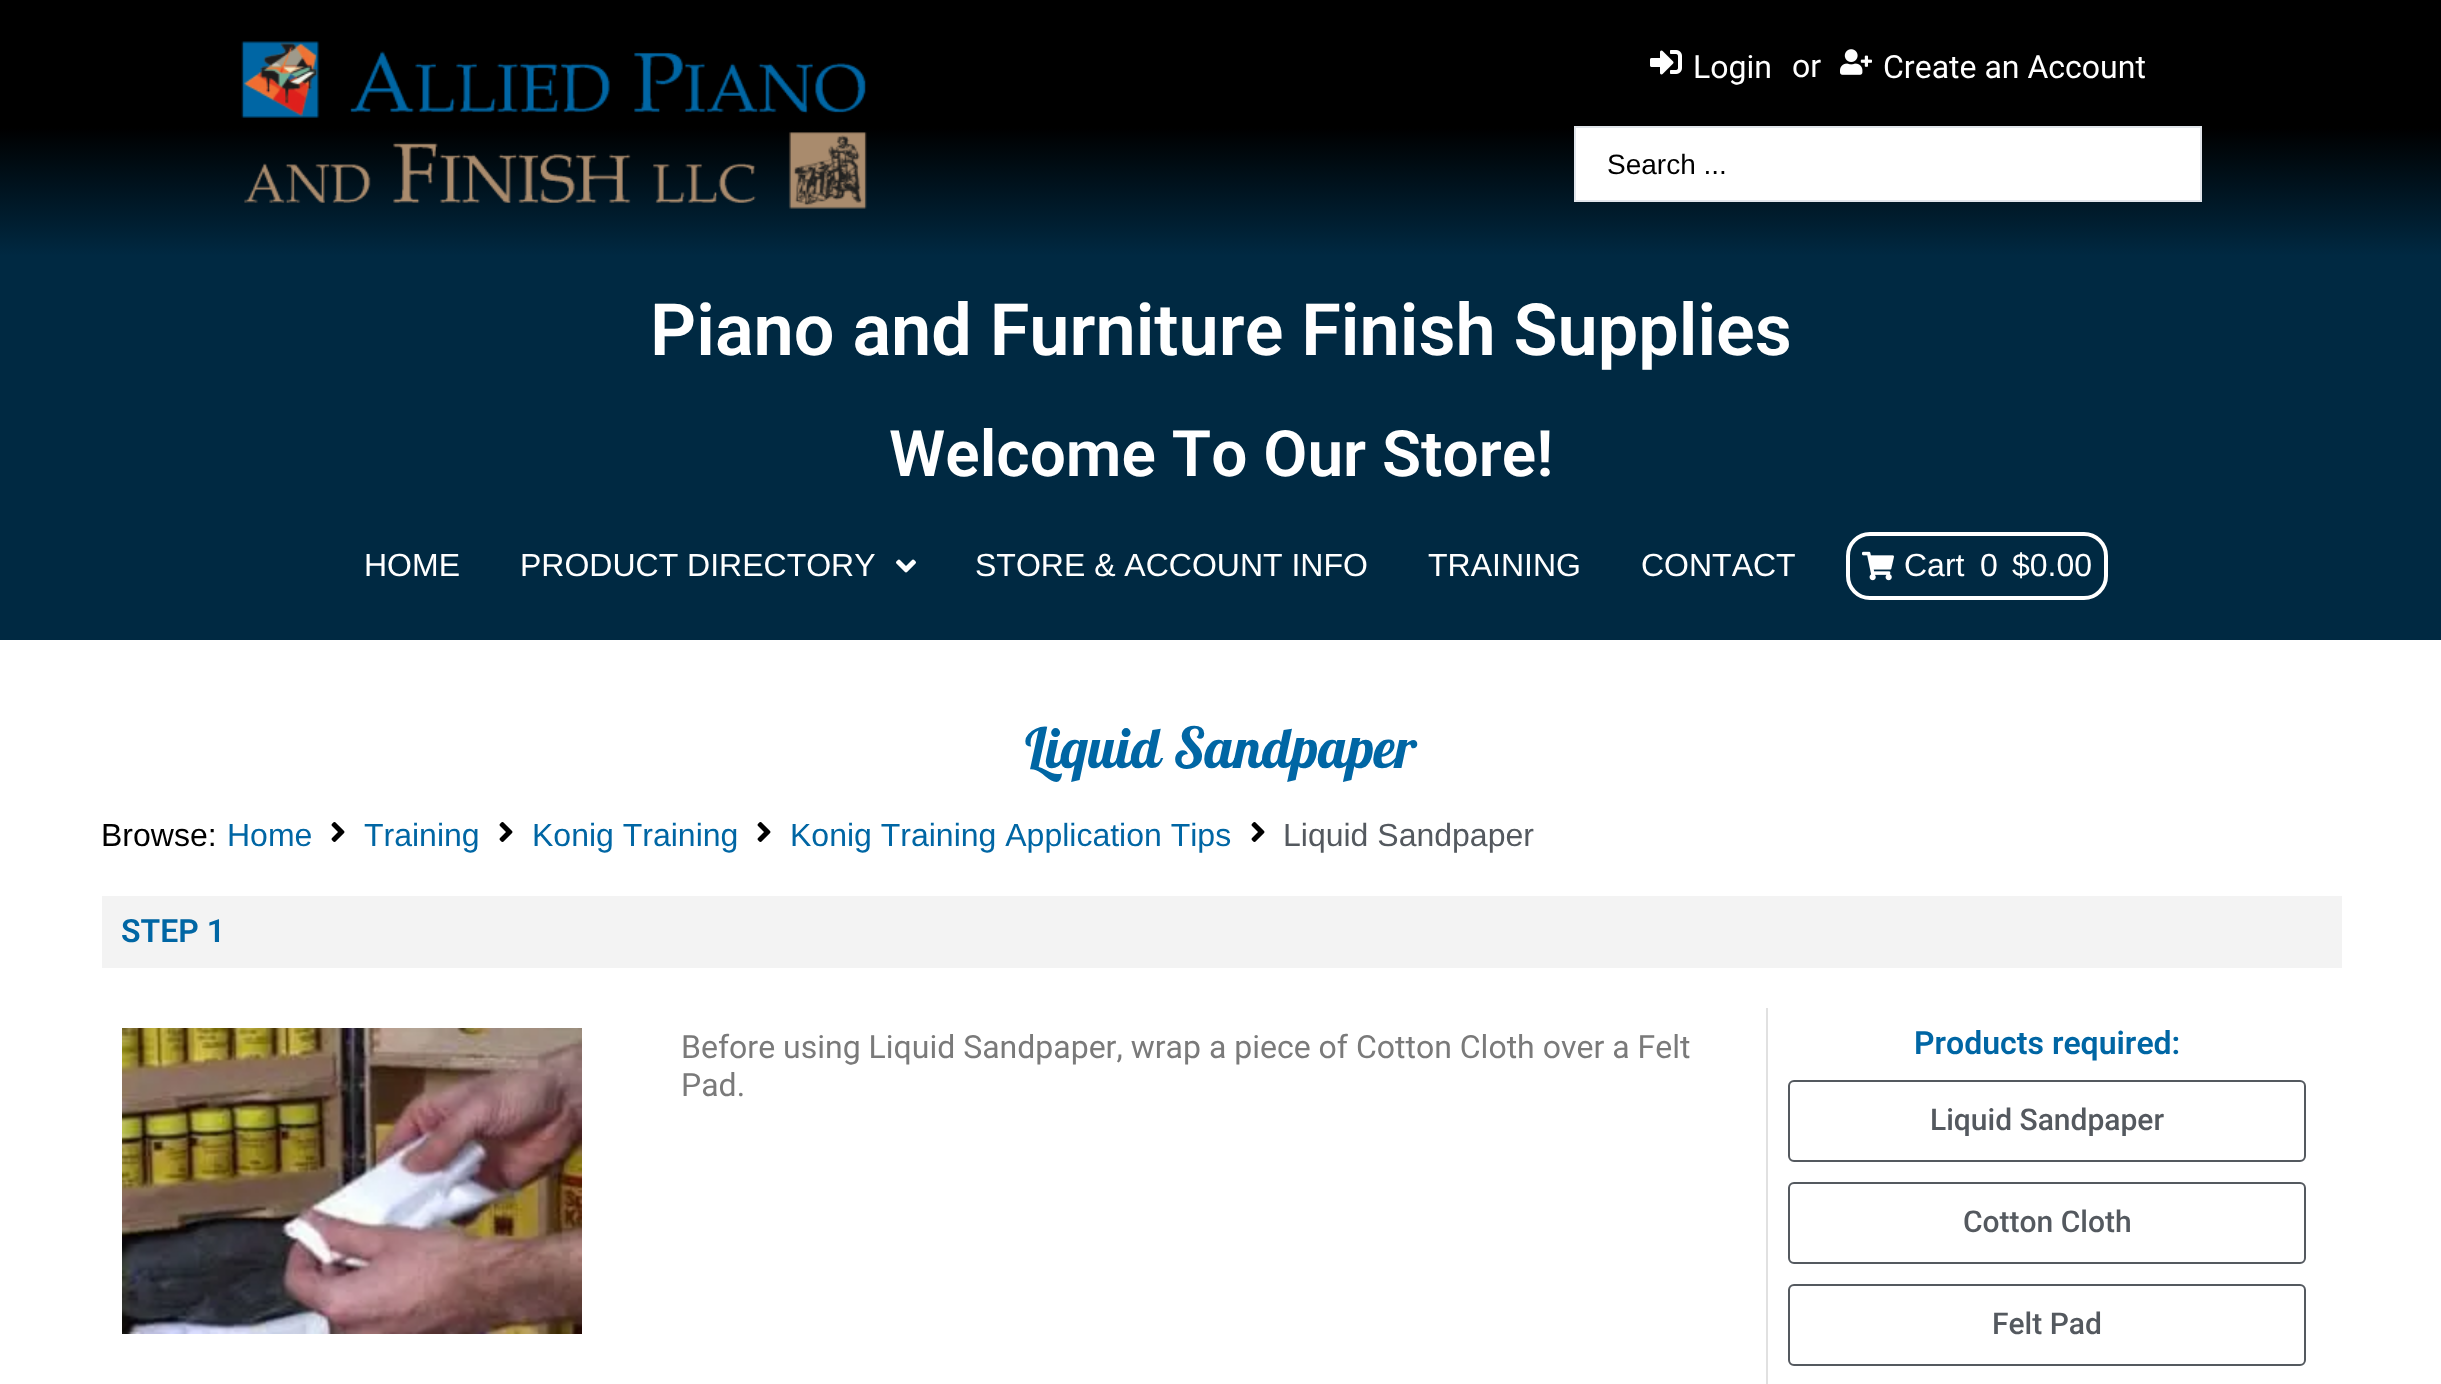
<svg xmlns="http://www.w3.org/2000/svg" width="2441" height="1384">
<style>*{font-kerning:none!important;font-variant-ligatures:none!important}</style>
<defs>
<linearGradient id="g1" gradientUnits="userSpaceOnUse" x1="1221" y1="0" x2="1221" y2="640"><stop offset="0.2" stop-color="#000"/><stop offset="0.4" stop-color="#002942"/></linearGradient>
</defs>
<rect width="100%" height="100%" fill="#fff"/>
<rect width="2441" height="640" fill="url(#g1)"/>
<image x="241" y="41" width="626" height="168" href="media/1.png"/>
<image x="1650" y="50" width="32" height="25" href="media/2.png"/>
<text x="1693" y="78" style="font-family:Roboto;font-size:32px;fill:#fff">Login</text>
<text x="1792" y="77" style="font-family:Roboto;font-size:32px;fill:#fff">or</text>
<image x="1840" y="49" width="32" height="26" href="media/3.png"/>
<text x="1883" y="78" style="font-family:Roboto;font-size:32px;fill:#fff">Create an Account</text>
<rect x="1575" y="127" width="626" height="74" fill="#fff" stroke="#e1e5eb" stroke-width="2"/>
<text x="1607" y="174" style="font-family:Liberation Sans;font-size:28px;fill:#000">Search ...</text>
<text x="650" y="355" style="font-family:Roboto;font-size:72px;font-weight:600;fill:#fff">Piano and Furniture Finish Supplies</text>
<text x="889" y="476" style="font-family:Roboto;font-size:64px;font-weight:600;fill:#fff">Welcome To Our Store!</text>
<text x="364" y="576" style="font-family:Liberation Sans;font-size:32px;fill:#fff">HOME</text>
<text x="520" y="576" style="font-family:Liberation Sans;font-size:32px;fill:#fff">PRODUCT DIRECTORY</text>
<image x="896" y="559" width="20" height="14" href="media/4.png"/>
<text x="975" y="576" style="font-family:Liberation Sans;font-size:32px;fill:#fff">STORE &amp; ACCOUNT INFO</text>
<text x="1428" y="576" style="font-family:Liberation Sans;font-size:32px;fill:#fff">TRAINING</text>
<text x="1641" y="576" style="font-family:Liberation Sans;font-size:32px;fill:#fff">CONTACT</text>
<rect x="1848" y="534" width="258" height="64" rx="22" fill="none" stroke="#fff" stroke-width="4"/>
<image x="1862" y="551" width="32" height="30" href="media/5.png"/>
<text x="1904" y="576" style="font-family:Liberation Sans;font-size:32px;fill:#fff">Cart</text>
<text x="1980" y="576" style="font-family:Liberation Sans;font-size:32px;fill:#fff">0</text>
<text x="2012" y="576" style="font-family:Liberation Sans;font-size:32px;fill:#fff">$0.00</text>
<text x="1025" y="768" style="font-family:Lobster;font-size:56px;fill:#0066a4">Liquid Sandpaper</text>
<text x="101" y="846" style="font-family:Liberation Sans;font-size:32px;fill:#000">Browse:</text>
<text x="227" y="846" style="font-family:Liberation Sans;font-size:32px;fill:#0066a4">Home</text>
<image x="331" y="822" width="14" height="20" href="media/6.png"/>
<text x="364" y="846" style="font-family:Liberation Sans;font-size:32px;fill:#0066a4">Training</text>
<image x="499" y="822" width="14" height="20" href="media/6.png"/>
<text x="532" y="846" style="font-family:Liberation Sans;font-size:32px;fill:#0066a4">Konig Training</text>
<image x="757" y="822" width="14" height="20" href="media/6.png"/>
<text x="790" y="846" style="font-family:Liberation Sans;font-size:32px;fill:#0066a4">Konig Training Application Tips</text>
<image x="1251" y="822" width="14" height="20" href="media/6.png"/>
<text x="1283" y="846" style="font-family:Liberation Sans;font-size:32px;fill:#54595f">Liquid Sandpaper</text>
<rect x="102" y="896" width="2240" height="72" fill="#f3f3f3"/>
<text x="121" y="942" style="font-family:Roboto;font-size:32px;font-weight:600;fill:#0066a4">STEP 1</text>
<image x="122" y="1028" width="460" height="306" href="media/7.png"/>
<text x="681" y="1058" style="font-family:Roboto;font-size:32px;fill:#7a7a7a">Before using Liquid Sandpaper, wrap a piece of Cotton Cloth over a Felt</text>
<text x="681" y="1096" style="font-family:Roboto;font-size:32px;fill:#7a7a7a">Pad.</text>
<rect x="1766" y="1008" width="2" height="376" fill="#e1e1e1"/>
<text x="1914" y="1054" style="font-family:Roboto;font-size:32px;font-weight:600;fill:#0066a4">Products required:</text>
<rect x="1789" y="1081" width="516" height="80" rx="5" fill="none" stroke="#54595f" stroke-width="2"/>
<text x="1930" y="1130" style="font-family:Roboto;font-size:30px;font-weight:500;fill:#54595f">Liquid Sandpaper</text>
<rect x="1789" y="1183" width="516" height="80" rx="5" fill="none" stroke="#54595f" stroke-width="2"/>
<text x="1963" y="1232" style="font-family:Roboto;font-size:30px;font-weight:500;fill:#54595f">Cotton Cloth</text>
<rect x="1789" y="1285" width="516" height="80" rx="5" fill="none" stroke="#54595f" stroke-width="2"/>
<text x="1992" y="1334" style="font-family:Roboto;font-size:30px;font-weight:500;fill:#54595f">Felt Pad</text>
</svg>
